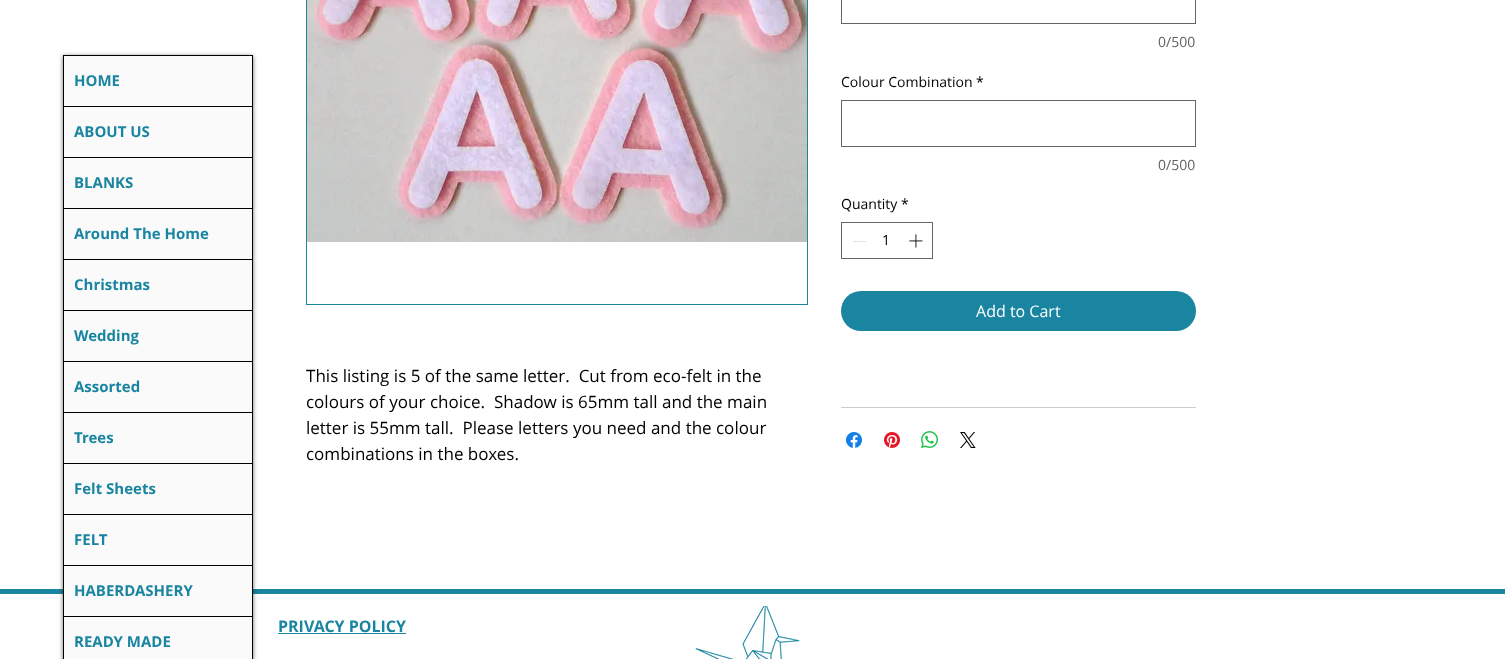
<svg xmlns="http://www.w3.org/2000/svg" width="1505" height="659">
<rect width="100%" height="100%" fill="#fff"/>
<rect y="589" width="1505" height="5" fill="#1985a1"/>
<rect x="63" y="56" width="190" height="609" fill="#00000099" filter="blur(2px)"/>
<rect x="63.5" y="55.5" width="189" height="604" fill="none" stroke="#000"/>
<rect x="64" y="106" width="188" height="1" fill="#000"/>
<rect x="64" y="56" width="188" height="50" fill="#fafafa"/>
<text x="74" y="86" style="font-family:Open Sans;font-size:15px;font-weight:bold;fill:#1985a1">HOME</text>
<rect x="64" y="157" width="188" height="1" fill="#000"/>
<rect x="64" y="107" width="188" height="50" fill="#fafafa"/>
<text x="74" y="137" style="font-family:Open Sans;font-size:15px;font-weight:bold;fill:#1985a1">ABOUT US</text>
<rect x="64" y="208" width="188" height="1" fill="#000"/>
<rect x="64" y="158" width="188" height="50" fill="#fafafa"/>
<text x="74" y="188" style="font-family:Open Sans;font-size:15px;font-weight:bold;fill:#1985a1">BLANKS</text>
<rect x="64" y="259" width="188" height="1" fill="#000"/>
<rect x="64" y="209" width="188" height="50" fill="#fafafa"/>
<text x="74" y="239" style="font-family:Open Sans;font-size:15px;font-weight:bold;fill:#1985a1">Around The Home</text>
<rect x="64" y="310" width="188" height="1" fill="#000"/>
<rect x="64" y="260" width="188" height="50" fill="#fafafa"/>
<text x="74" y="290" style="font-family:Open Sans;font-size:15px;font-weight:bold;fill:#1985a1">Christmas</text>
<rect x="64" y="361" width="188" height="1" fill="#000"/>
<rect x="64" y="311" width="188" height="50" fill="#fafafa"/>
<text x="74" y="341" style="font-family:Open Sans;font-size:15px;font-weight:bold;fill:#1985a1">Wedding</text>
<rect x="64" y="412" width="188" height="1" fill="#000"/>
<rect x="64" y="362" width="188" height="50" fill="#fafafa"/>
<text x="74" y="392" style="font-family:Open Sans;font-size:15px;font-weight:bold;fill:#1985a1">Assorted</text>
<rect x="64" y="463" width="188" height="1" fill="#000"/>
<rect x="64" y="413" width="188" height="50" fill="#fafafa"/>
<text x="74" y="443" style="font-family:Open Sans;font-size:15px;font-weight:bold;fill:#1985a1">Trees</text>
<rect x="64" y="514" width="188" height="1" fill="#000"/>
<rect x="64" y="464" width="188" height="50" fill="#fafafa"/>
<text x="74" y="494" style="font-family:Open Sans;font-size:15px;font-weight:bold;fill:#1985a1">Felt Sheets</text>
<rect x="64" y="565" width="188" height="1" fill="#000"/>
<rect x="64" y="515" width="188" height="50" fill="#fafafa"/>
<text x="74" y="545" style="font-family:Open Sans;font-size:15px;font-weight:bold;fill:#1985a1">FELT</text>
<rect x="64" y="616" width="188" height="1" fill="#000"/>
<rect x="64" y="566" width="188" height="50" fill="#fafafa"/>
<text x="74" y="596" style="font-family:Open Sans;font-size:15px;font-weight:bold;fill:#1985a1">HABERDASHERY</text>
<rect x="64" y="617" width="188" height="42" fill="#fafafa"/>
<text x="74" y="647" style="font-family:Open Sans;font-size:15px;font-weight:bold;fill:#1985a1">READY MADE</text>
<rect x="841.5" y="-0.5" width="354" height="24" fill="none" stroke="#666"/>
<text x="1158" y="47" style="font-family:Open Sans;font-size:14px;fill:#606060">0/500</text>
<text x="841" y="87" style="font-family:Open Sans;font-size:14px;fill:#000">Colour Combination</text>
<text x="976" y="87" style="font-family:Open Sans;font-size:14px;fill:#000">*</text>
<rect x="841.5" y="100.5" width="354" height="46" fill="none" stroke="#666"/>
<text x="1158" y="170" style="font-family:Open Sans;font-size:14px;fill:#606060">0/500</text>
<text x="841" y="209" style="font-family:Open Sans;font-size:14px;fill:#000">Quantity</text>
<text x="901" y="209" style="font-family:Open Sans;font-size:14px;fill:#000">*</text>
<rect x="841.5" y="222.5" width="91" height="36" fill="none" stroke="#666"/>
<rect x="853" y="241" width="13" height="1" fill="#e3e3e3"/>
<text x="882" y="245" style="font-family:Open Sans;font-size:14px;fill:#000">1</text>
<image x="909" y="234" width="14" height="14" href="media/1.png"/>
<rect x="841" y="291" width="355" height="40" rx="20" fill="#1985a1"/>
<text x="976" y="317" style="font-family:Open Sans;font-size:16px;fill:#fff">Add to Cart</text>
<rect x="841" y="407" width="355" height="1" fill="#ccc"/>
<image x="846" y="432" width="16" height="16" href="media/2.png"/>
<image x="884" y="432" width="16" height="16" href="media/3.png"/>
<image x="921" y="431" width="17" height="17" href="media/4.png"/>
<image x="960" y="432" width="16" height="16" href="media/5.png"/>
<rect x="306.5" y="-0.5" width="501" height="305" fill="none" stroke="#1985a1"/>
<image x="307" y="0" width="500" height="242" href="media/6.png"/>
<text x="306" y="382" style="font-family:Open Sans;font-size:17px;fill:#000" xml:space="preserve">This listing is 5 of the same letter.  Cut from eco-felt in the</text>
<text x="306" y="408" style="font-family:Open Sans;font-size:17px;fill:#000" xml:space="preserve">colours of your choice.  Shadow is 65mm tall and the main</text>
<text x="306" y="434" style="font-family:Open Sans;font-size:17px;fill:#000" xml:space="preserve">letter is 55mm tall.  Please letters you need and the colour</text>
<text x="306" y="460" style="font-family:Open Sans;font-size:17px;fill:#000">combinations in the boxes.</text>
<text x="278" y="632" style="font-family:Open Sans;font-size:16px;font-weight:bold;fill:#1985a1">PRIVACY POLICY</text>
<rect x="278" y="633" width="128" height="1" fill="#1985a1"/>
<image x="695" y="606" width="105" height="53" href="media/7.png"/>
</svg>
